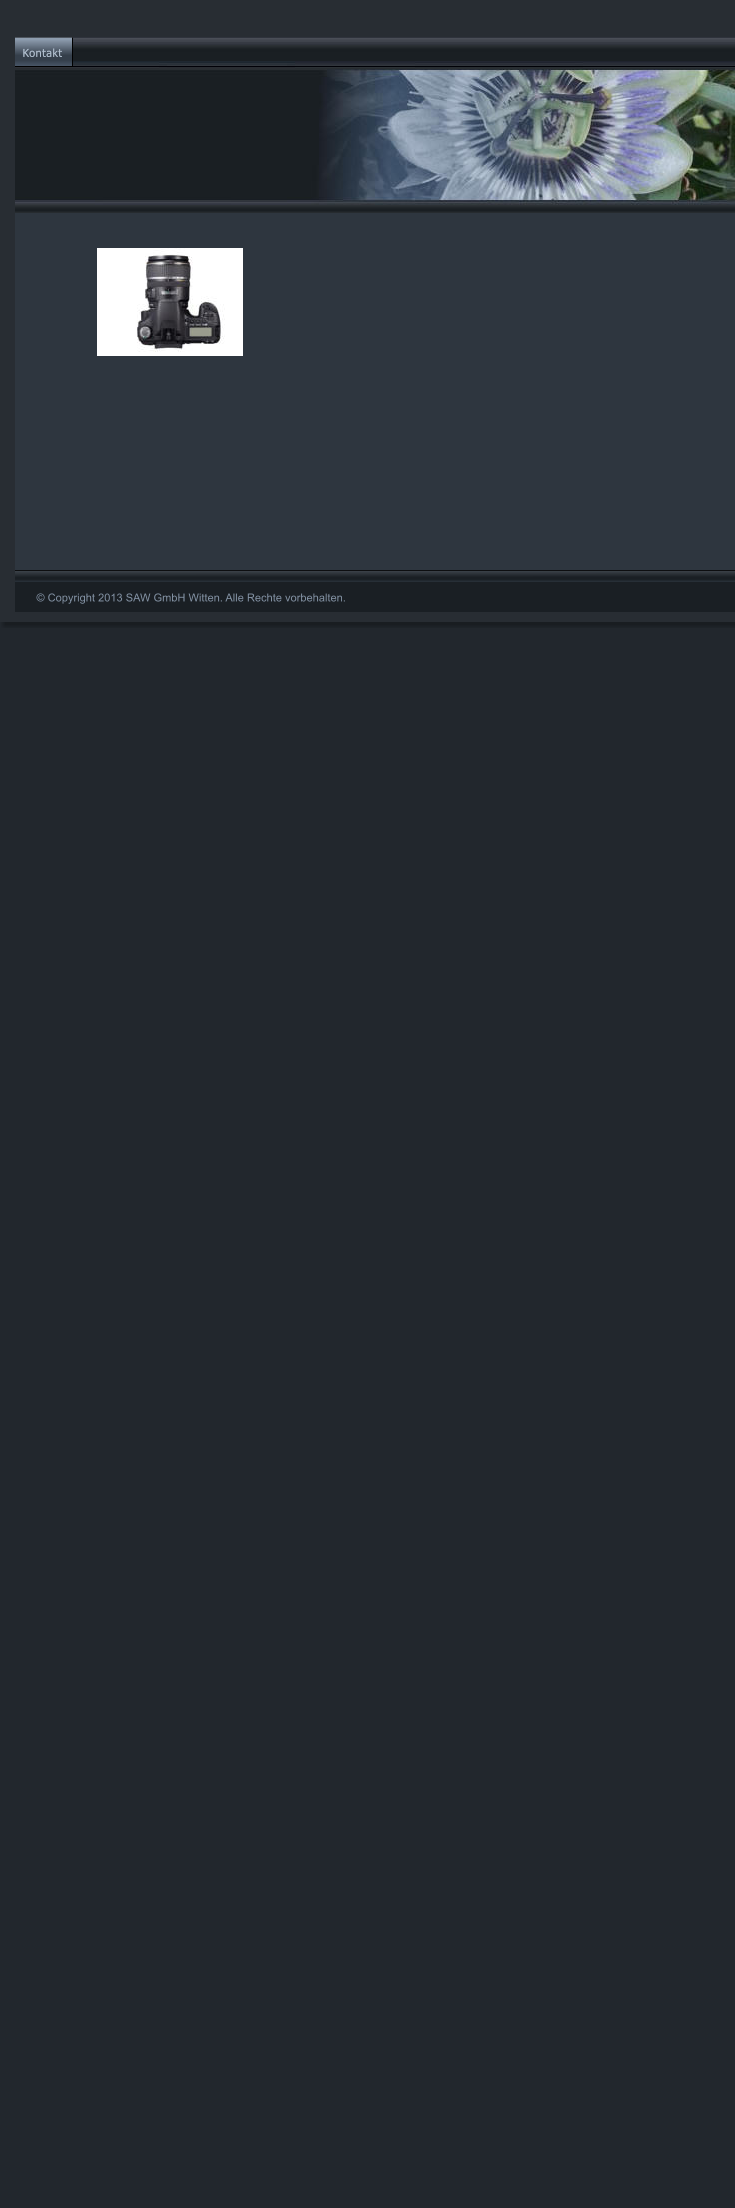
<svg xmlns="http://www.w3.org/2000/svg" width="735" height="2208">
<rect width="100%" height="100%" fill="#22272d"/>
<image x="0" y="0" width="735" height="628" href="media/1.png"/>
<image x="15" y="37" width="720" height="176" href="media/2.png"/>
<image x="15" y="37" width="58" height="29" href="media/3.png"/>
<image x="15" y="66" width="58" height="1" href="media/4.png"/>
<rect x="15" y="213" width="720" height="357" fill="#2e363f"/>
<image x="97" y="248" width="146" height="108" href="media/5.png"/>
<image x="15" y="570" width="720" height="42" href="media/6.png"/>
</svg>
